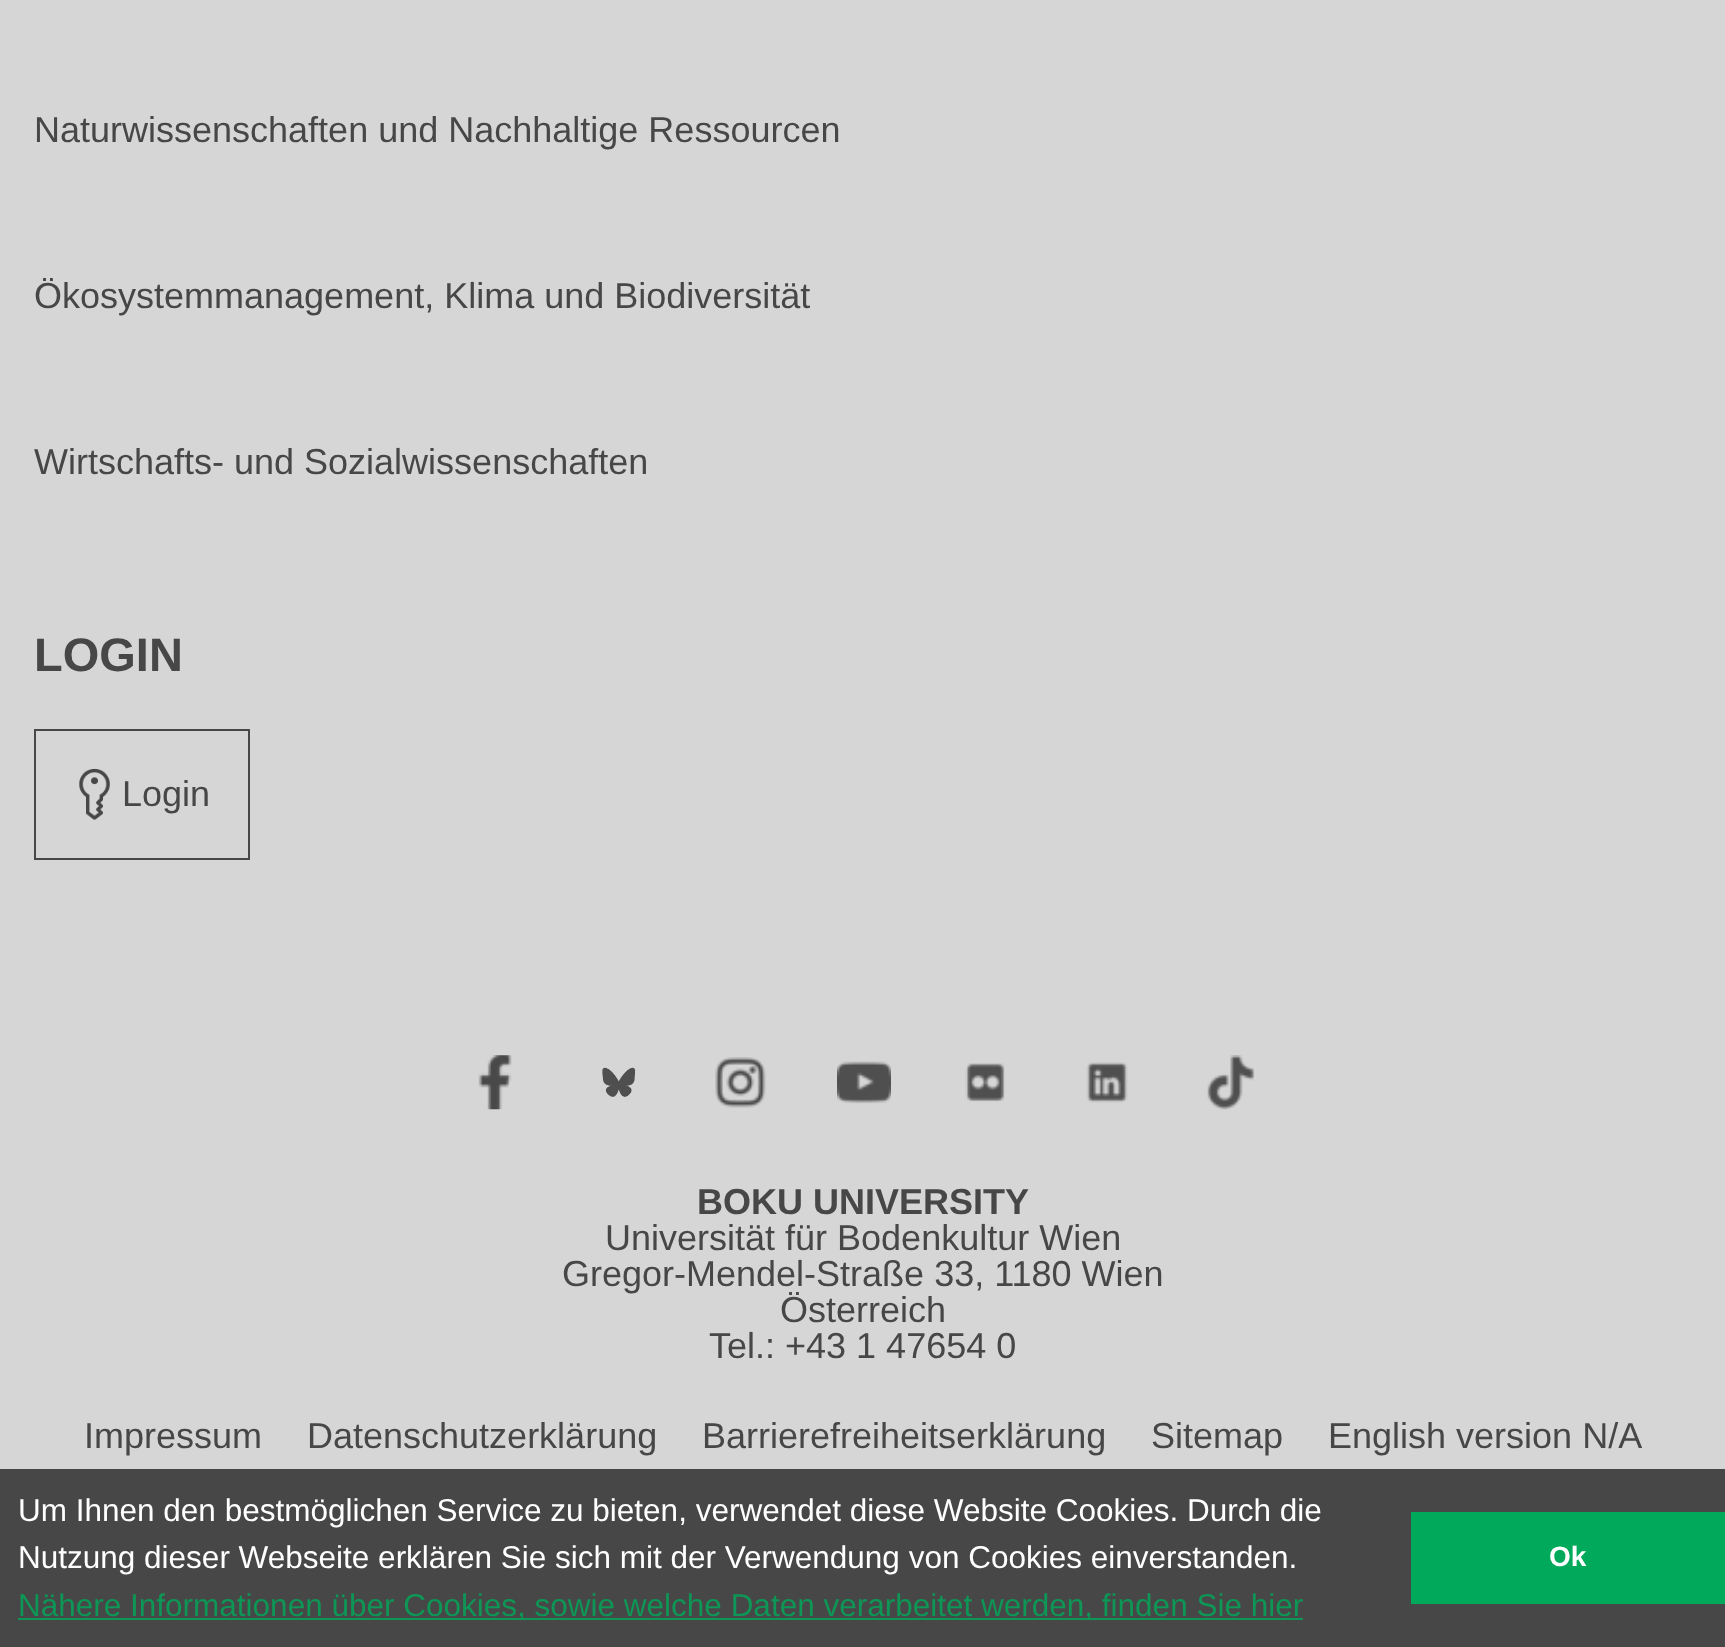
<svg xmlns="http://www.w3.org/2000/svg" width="1725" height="1647">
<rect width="100%" height="100%" fill="#d6d6d6"/>
<text x="34" y="142" style="font-family:Liberation Sans;font-size:36px;fill:#474747">Naturwissenschaften und Nachhaltige Ressourcen</text>
<text x="34" y="308" style="font-family:Liberation Sans;font-size:36px;fill:#474747">Ökosystemmanagement, Klima und Biodiversität</text>
<text x="34" y="474" style="font-family:Liberation Sans;font-size:36px;fill:#474747">Wirtschafts- und Sozialwissenschaften</text>
<text x="34" y="671" style="font-family:Liberation Sans;font-size:47px;font-weight:bold;fill:#474747">LOGIN</text>
<rect x="35" y="730" width="214" height="129" fill="none" stroke="#474747" stroke-width="2"/>
<image x="79" y="768" width="31" height="52" href="media/1.png"/>
<text x="122" y="806" style="font-family:Liberation Sans;font-size:36px;fill:#474747">Login</text>
<image x="478" y="1055" width="34" height="55" href="media/2.png"/>
<image x="602" y="1067" width="34" height="30" href="media/3.png"/>
<image x="715" y="1057" width="51" height="51" href="media/4.png"/>
<image x="837" y="1061" width="54" height="43" href="media/5.png"/>
<image x="965" y="1063" width="40" height="39" href="media/6.png"/>
<image x="1086" y="1062" width="42" height="41" href="media/7.png"/>
<image x="1207" y="1055" width="48" height="55" href="media/8.png"/>
<text x="697" y="1214" style="font-family:Liberation Sans;font-size:36px;font-weight:bold;fill:#474747">BOKU UNIVERSITY</text>
<text x="605" y="1250" style="font-family:Liberation Sans;font-size:36px;fill:#474747">Universität für Bodenkultur Wien</text>
<text x="562" y="1286" style="font-family:Liberation Sans;font-size:36px;fill:#474747">Gregor-Mendel-Straße 33, 1180 Wien</text>
<text x="780" y="1322" style="font-family:Liberation Sans;font-size:36px;fill:#474747">Österreich</text>
<text x="709" y="1358" style="font-family:Liberation Sans;font-size:36px;fill:#474747">Tel.: +43 1 47654 0</text>
<text x="84" y="1448" style="font-family:Liberation Sans;font-size:36px;fill:#474747">Impressum</text>
<text x="307" y="1448" style="font-family:Liberation Sans;font-size:36px;fill:#474747">Datenschutzerklärung</text>
<text x="702" y="1448" style="font-family:Liberation Sans;font-size:36px;fill:#474747">Barrierefreiheitserklärung</text>
<text x="1151" y="1448" style="font-family:Liberation Sans;font-size:36px;fill:#474747">Sitemap</text>
<text x="1328" y="1448" style="font-family:Liberation Sans;font-size:36px;fill:#474747">English version N/A</text>
<rect y="1469" width="1725" height="178" fill="#474747"/>
<text x="18" y="1521" style="font-family:Liberation Sans;font-size:31.5px;fill:#fff">Um Ihnen den bestmöglichen Service zu bieten, verwendet diese Website Cookies. Durch die</text>
<text x="18" y="1568" style="font-family:Liberation Sans;font-size:31.5px;fill:#fff">Nutzung dieser Webseite erklären Sie sich mit der Verwendung von Cookies einverstanden.</text>
<rect x="18" y="1618" width="1285" height="2" fill="#0e9656"/>
<text x="18" y="1616" style="font-family:Liberation Sans;font-size:31.5px;fill:#0e9656">Nähere Informationen über Cookies, sowie welche Daten verarbeitet werden, finden Sie hier</text>
<rect x="1411" y="1512" width="314" height="92" fill="#00aa5a"/>
<text x="1549" y="1566" style="font-family:Liberation Sans;font-size:28px;font-weight:bold;fill:#fff">Ok</text>
</svg>
